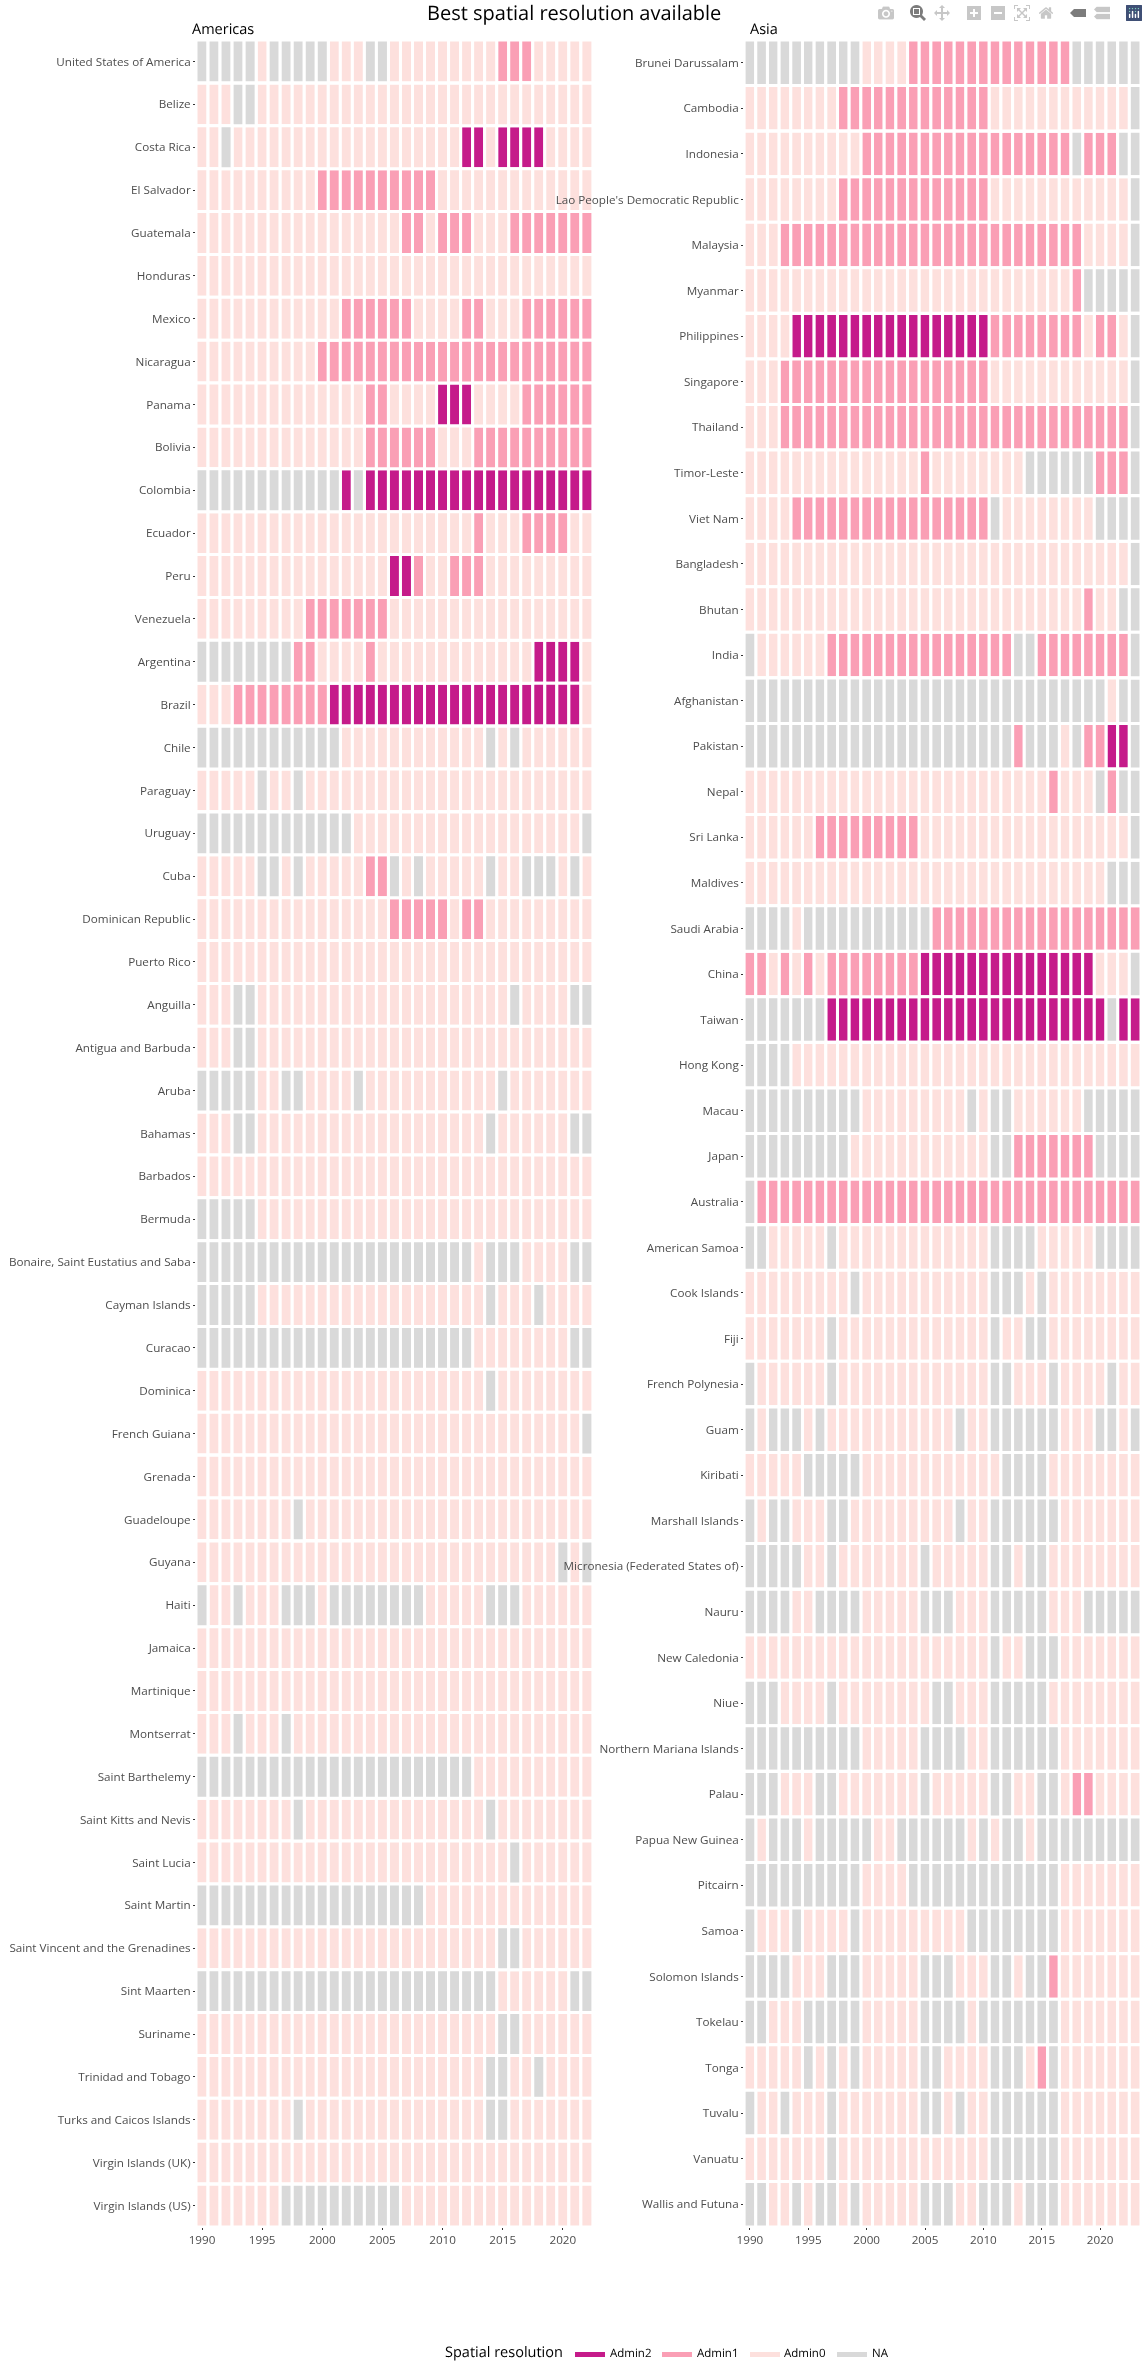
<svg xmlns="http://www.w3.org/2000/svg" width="1148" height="2377">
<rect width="100%" height="100%" fill="#fff"/>
<rect x="575" y="2352" width="30" height="5" fill="#c51b8a"/>
<rect x="662" y="2352" width="30" height="5" fill="#fa9fb5"/>
<rect x="750" y="2352" width="30" height="5" fill="#fde0dd"/>
<rect x="837" y="2352" width="30" height="5" fill="#d9d9d9"/>
<text x="427" y="20" style="font-family:Open Sans;font-size:20px;fill:#000">Best spatial resolution available</text>
<text x="192" y="34" style="font-family:Open Sans;font-size:14.5px;fill:#000">Americas</text>
<text x="750" y="34" style="font-family:Open Sans;font-size:14.5px;fill:#000">Asia</text>
<text x="445" y="2357" style="font-family:Open Sans;font-size:14.5px;fill:#000">Spatial resolution</text>
<text x="610" y="2357" style="font-family:Open Sans;font-size:11.5px;fill:#000">Admin2</text>
<text x="697" y="2357" style="font-family:Open Sans;font-size:11.5px;fill:#000">Admin1</text>
<text x="784" y="2357" style="font-family:Open Sans;font-size:11.5px;fill:#000">Admin0</text>
<text x="872" y="2357" style="font-family:Open Sans;font-size:11.5px;fill:#000">NA</text>
<image x="878" y="6" width="16" height="14" href="media/1.png"/>
<image x="910" y="5" width="16" height="16" href="media/2.png"/>
<image x="934" y="5" width="16" height="16" href="media/3.png"/>
<image x="967" y="6" width="14" height="14" href="media/4.png"/>
<image x="991" y="6" width="14" height="14" href="media/5.png"/>
<image x="1014" y="5" width="16" height="16" href="media/6.png"/>
<image x="1039" y="7" width="14" height="12" href="media/7.png"/>
<path d="M1074 9l-4 4l4 4h12v-8z" fill="#7c7c7c"/>
<image x="1094" y="6" width="16" height="14" href="media/8.png"/>
<image x="1126" y="5" width="16" height="16" href="media/9.png"/>
<image x="10" y="41" width="1130" height="2203" href="media/10.png"/>
</svg>
